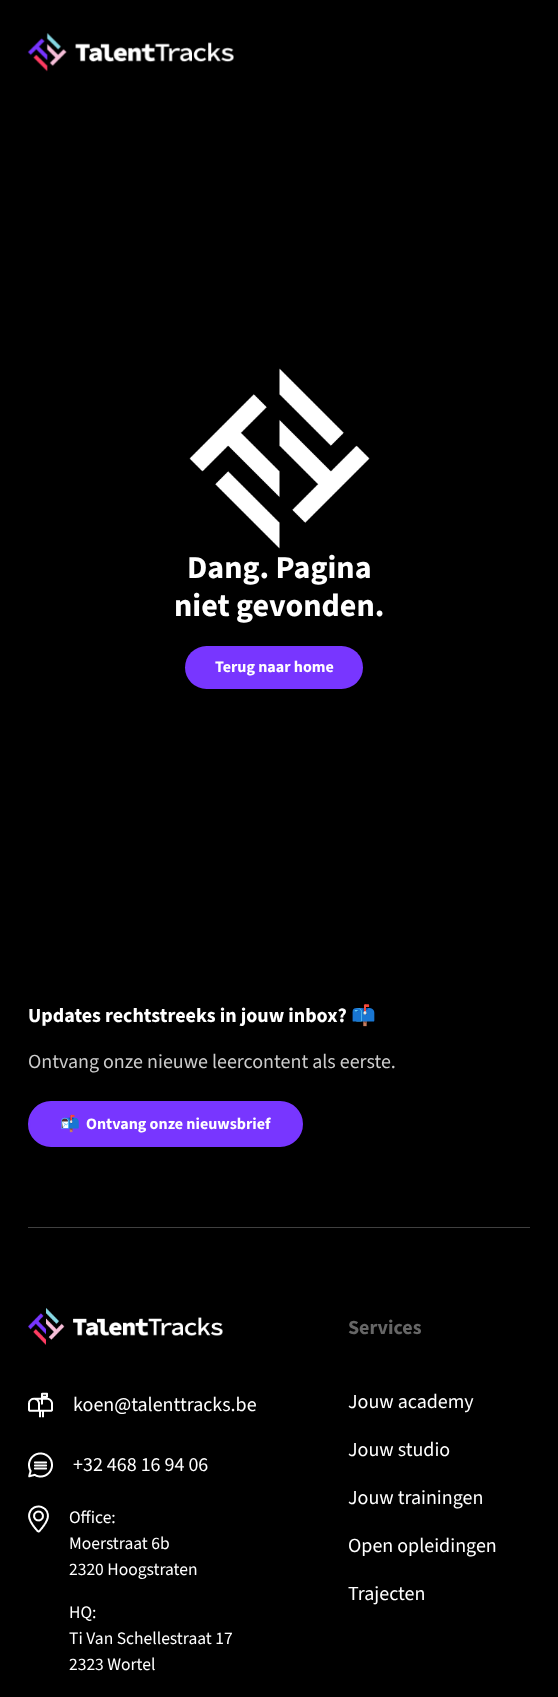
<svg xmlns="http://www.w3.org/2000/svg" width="558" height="1697">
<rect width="100%" height="100%" fill="#000"/>
<image x="27" y="33" width="207" height="39" href="media/1.png"/>
<image x="189" y="368" width="181" height="181" href="media/2.png"/>
<text x="187" y="578" style="font-family:'Source Sans 3';font-size:32px;font-weight:bold;fill:#fff">Dang. Pagina</text>
<text x="174" y="616" style="font-family:'Source Sans 3';font-size:32px;font-weight:bold;fill:#fff">niet gevonden.</text>
<rect x="185" y="646" width="178" height="43" rx="21.5" fill="#7836ff"/>
<text x="215" y="672" style="font-family:'Source Sans 3';font-size:16px;font-weight:bold;fill:#fff">Terug naar home</text>
<text x="28" y="1022" style="font-family:'Source Sans 3';font-size:20px;font-weight:bold;fill:#fff">Updates rechtstreeks in jouw inbox?</text>
<text x="351" y="1022" style="font-family:Noto Color Emoji;font-size:20px;font-weight:bold;fill:#fff">📫</text>
<text x="28" y="1068" style="font-family:'Source Sans 3';font-size:20px;fill:#ccc">Ontvang onze nieuwe leercontent als eerste.</text>
<rect x="29" y="1102" width="273" height="44" rx="22" fill="#7836ff" stroke="#7836ff" stroke-width="2"/>
<text x="60" y="1129" style="font-family:Noto Color Emoji;font-size:16px;font-weight:bold;fill:#fff">📬</text>
<text x="86" y="1129" style="font-family:'Source Sans 3';font-size:16px;font-weight:bold;fill:#fff">Ontvang onze nieuwsbrief</text>
<rect x="28" y="1227" width="502" height="1" fill="#404040"/>
<image x="28" y="1308" width="195" height="37" href="media/3.png"/>
<image x="28" y="1392" width="25" height="26" href="media/4.png"/>
<text x="73" y="1411" style="font-family:'Source Sans 3';font-size:20px;fill:#fff">koen@talenttracks.be</text>
<image x="28" y="1452" width="25" height="26" href="media/5.png"/>
<text x="73" y="1471" style="font-family:'Source Sans 3';font-size:20px;fill:#fff">+32 468 16 94 06</text>
<image x="28" y="1505" width="21" height="28" href="media/6.png"/>
<text x="69" y="1523" style="font-family:'Source Sans 3';font-size:17.5px;fill:#fff">Office:</text>
<text x="69" y="1549" style="font-family:'Source Sans 3';font-size:17.5px;fill:#fff">Moerstraat 6b</text>
<text x="69" y="1575" style="font-family:'Source Sans 3';font-size:17.5px;fill:#fff">2320 Hoogstraten</text>
<text x="69" y="1618" style="font-family:'Source Sans 3';font-size:17.5px;fill:#fff">HQ:</text>
<text x="69" y="1644" style="font-family:'Source Sans 3';font-size:17.5px;fill:#fff">Ti Van Schellestraat 17</text>
<text x="69" y="1670" style="font-family:'Source Sans 3';font-size:17.5px;fill:#fff">2323 Wortel</text>
<text x="348" y="1334" style="font-family:'Source Sans 3';font-size:20px;font-weight:bold;fill:#666">Services</text>
<text x="348" y="1408" style="font-family:'Source Sans 3';font-size:20px;fill:#fff">Jouw academy</text>
<text x="348" y="1456" style="font-family:'Source Sans 3';font-size:20px;fill:#fff">Jouw studio</text>
<text x="348" y="1504" style="font-family:'Source Sans 3';font-size:20px;fill:#fff">Jouw trainingen</text>
<text x="348" y="1552" style="font-family:'Source Sans 3';font-size:20px;fill:#fff">Open opleidingen</text>
<text x="348" y="1600" style="font-family:'Source Sans 3';font-size:20px;fill:#fff">Trajecten</text>
</svg>
